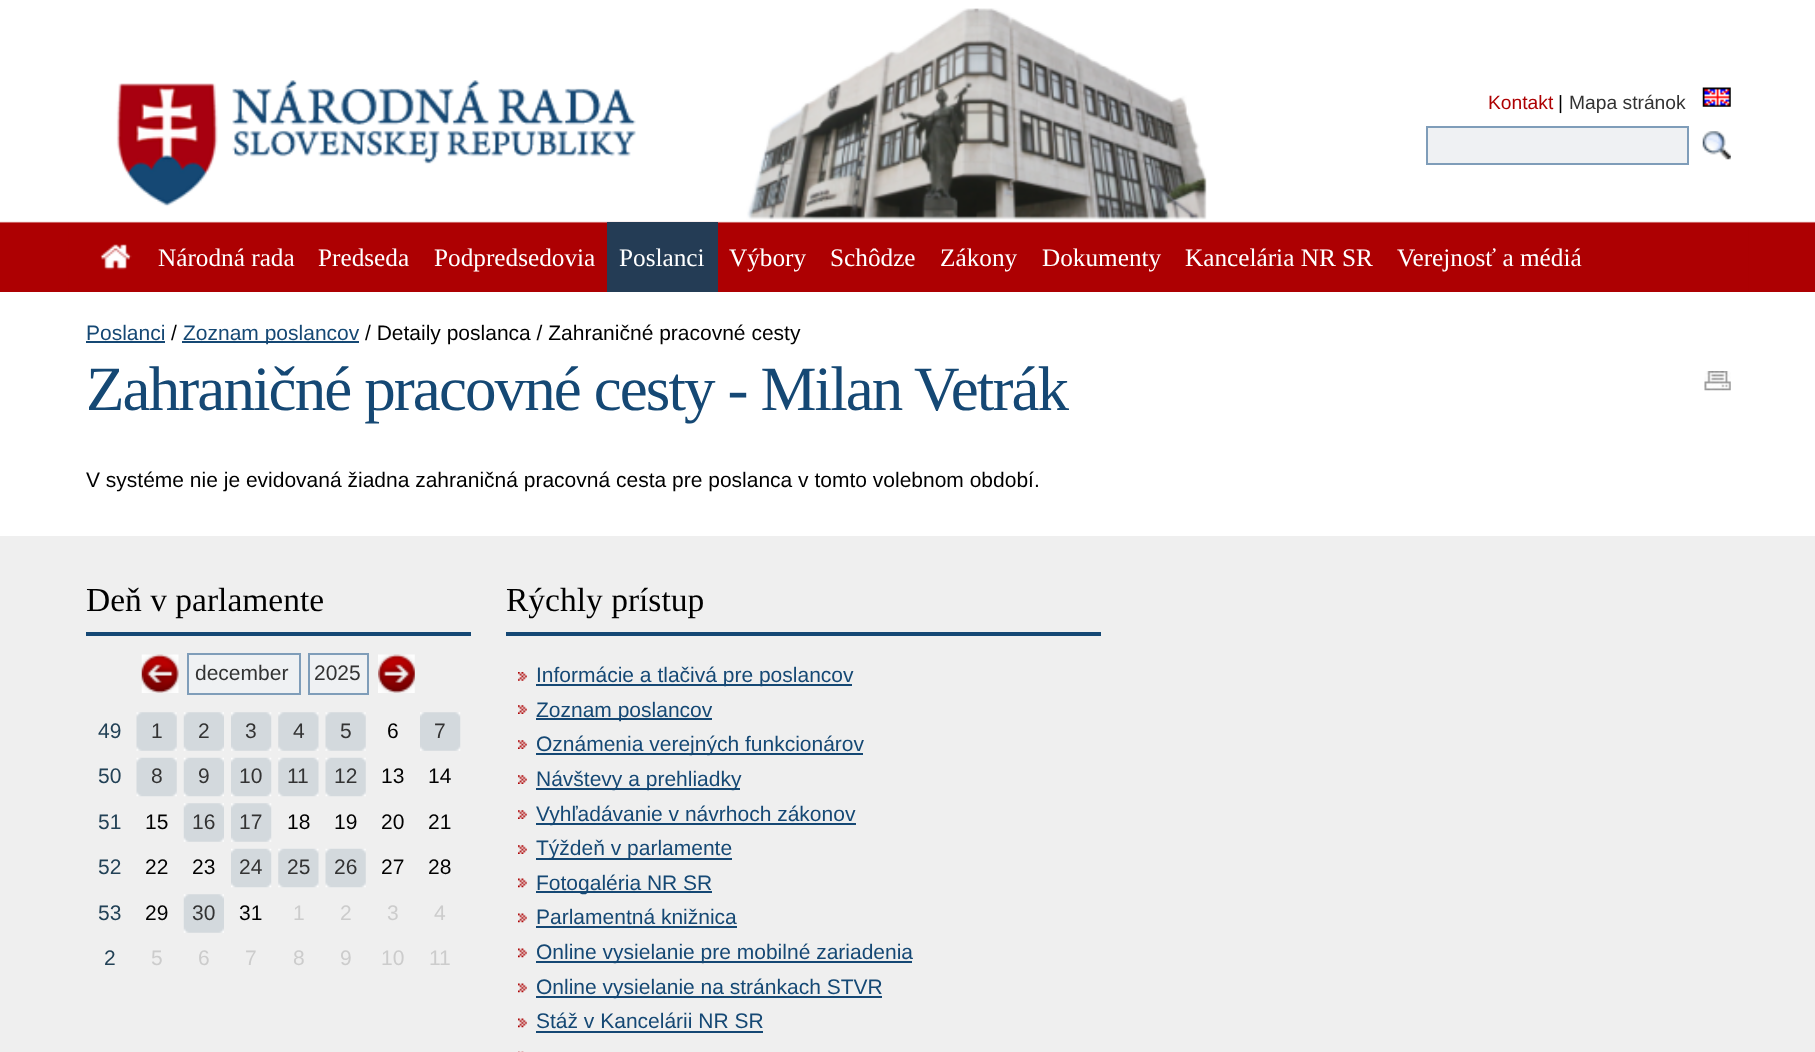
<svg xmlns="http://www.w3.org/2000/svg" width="1815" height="1052">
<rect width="100%" height="100%" fill="#fff"/>
<image x="0" y="221" width="1815" height="71" href="media/1.png"/>
<image x="68" y="8" width="1681" height="284" href="media/2.png"/>
<image x="232" y="80" width="404" height="84" href="media/3.png"/>
<text x="1488" y="109" style="font-family:Liberation Sans;font-size:19.25px;fill:#ad0002">Kontakt</text>
<text x="1558" y="109" style="font-family:Liberation Sans;font-size:19.25px;fill:#000">|</text>
<text x="1569" y="109" style="font-family:Liberation Sans;font-size:19.25px;fill:#333">Mapa stránok</text>
<image x="1702" y="87" width="29" height="20" href="media/4.png"/>
<rect x="1427" y="127" width="261" height="37" fill="#eff1f3" stroke="#7f9db9" stroke-width="2"/>
<image x="1702" y="131" width="29" height="29" href="media/5.png"/>
<image x="100" y="244" width="32" height="26" href="media/6.png"/>
<text x="158" y="266" style="font-family:Liberation Serif;font-size:25.25px;fill:#fff">Národná rada</text>
<text x="318" y="266" style="font-family:Liberation Serif;font-size:25.25px;fill:#fff">Predseda</text>
<text x="434" y="266" style="font-family:Liberation Serif;font-size:25.25px;fill:#fff">Podpredsedovia</text>
<rect x="607" y="222" width="111" height="70" fill="#243c55"/>
<text x="619" y="266" style="font-family:Liberation Serif;font-size:25.25px;fill:#fff">Poslanci</text>
<text x="729" y="266" style="font-family:Liberation Serif;font-size:25.25px;fill:#fff">Výbory</text>
<text x="830" y="266" style="font-family:Liberation Serif;font-size:25.25px;fill:#fff">Schôdze</text>
<text x="940" y="266" style="font-family:Liberation Serif;font-size:25.25px;fill:#fff">Zákony</text>
<text x="1042" y="266" style="font-family:Liberation Serif;font-size:25.25px;fill:#fff">Dokumenty</text>
<text x="1185" y="266" style="font-family:Liberation Serif;font-size:25.25px;fill:#fff">Kancelária NR SR</text>
<text x="1397" y="266" style="font-family:Liberation Serif;font-size:25.25px;fill:#fff">Verejnosť a médiá</text>
<text x="86" y="340" style="font-family:Liberation Sans;font-size:21px;fill:#154874">Poslanci</text>
<rect x="86" y="341" width="79" height="2" fill="#154874"/>
<text x="171" y="340" style="font-family:Liberation Sans;font-size:21px;fill:#000">/</text>
<rect x="182" y="341" width="177" height="2" fill="#154874"/>
<text x="183" y="340" style="font-family:Liberation Sans;font-size:21px;fill:#154874">Zoznam poslancov</text>
<text x="365" y="340" style="font-family:Liberation Sans;font-size:21px;fill:#000">/ Detaily poslanca / Zahraničné pracovné cesty</text>
<text x="86" y="410" style="font-family:Liberation Serif;font-size:63px;letter-spacing:-1.9px;fill:#154874">Zahraničné pracovné cesty - Milan Vetrák</text>
<image x="1704" y="371" width="27" height="20" href="media/7.png"/>
<text x="86" y="487" style="font-family:Liberation Sans;font-size:21px;fill:#000">V systéme nie je evidovaná žiadna zahraničná pracovná cesta pre poslanca v tomto volebnom období.</text>
<rect y="536" width="1815" height="516" fill="#efefef"/>
<rect x="86" y="632" width="385" height="4" fill="#154874"/>
<text x="86" y="611" style="font-family:Liberation Serif;font-size:33.5px;fill:#000">Deň v parlamente</text>
<image x="141" y="654" width="38" height="39" href="media/8.png"/>
<rect x="188" y="654" width="112" height="40" fill="#eff1f3" stroke="#7f9db9" stroke-width="2"/>
<text x="195" y="680" style="font-family:Liberation Sans;font-size:21px;fill:#333">december</text>
<rect x="309" y="654" width="59" height="40" fill="#eff1f3" stroke="#7f9db9" stroke-width="2"/>
<text x="314" y="680" style="font-family:Liberation Sans;font-size:21px;fill:#333">2025</text>
<image x="378" y="654" width="37" height="39" href="media/9.png"/>
<text x="98" y="738" style="font-family:Liberation Sans;font-size:21px;fill:#224156">49</text>
<image x="136" y="712" width="41" height="39" href="media/10.png"/>
<text x="151" y="738" style="font-family:Liberation Sans;font-size:21px;fill:#333">1</text>
<image x="183" y="712" width="41" height="39" href="media/11.png"/>
<text x="198" y="738" style="font-family:Liberation Sans;font-size:21px;fill:#333">2</text>
<image x="231" y="712" width="41" height="39" href="media/12.png"/>
<text x="245" y="738" style="font-family:Liberation Sans;font-size:21px;fill:#333">3</text>
<image x="278" y="712" width="41" height="39" href="media/13.png"/>
<text x="293" y="738" style="font-family:Liberation Sans;font-size:21px;fill:#333">4</text>
<image x="325" y="712" width="41" height="39" href="media/10.png"/>
<text x="340" y="738" style="font-family:Liberation Sans;font-size:21px;fill:#333">5</text>
<text x="387" y="738" style="font-family:Liberation Sans;font-size:21px;fill:#000">6</text>
<image x="420" y="712" width="41" height="39" href="media/14.png"/>
<text x="434" y="738" style="font-family:Liberation Sans;font-size:21px;fill:#333">7</text>
<text x="98" y="783" style="font-family:Liberation Sans;font-size:21px;fill:#224156">50</text>
<image x="136" y="757" width="41" height="40" href="media/15.png"/>
<text x="151" y="783" style="font-family:Liberation Sans;font-size:21px;fill:#333">8</text>
<image x="183" y="757" width="41" height="40" href="media/16.png"/>
<text x="198" y="783" style="font-family:Liberation Sans;font-size:21px;fill:#333">9</text>
<image x="231" y="757" width="41" height="40" href="media/17.png"/>
<text x="239" y="783" style="font-family:Liberation Sans;font-size:21px;fill:#333">10</text>
<image x="278" y="757" width="41" height="40" href="media/18.png"/>
<text x="287" y="783" style="font-family:Liberation Sans;font-size:21px;fill:#333">11</text>
<image x="325" y="757" width="41" height="40" href="media/15.png"/>
<text x="334" y="783" style="font-family:Liberation Sans;font-size:21px;fill:#333">12</text>
<text x="381" y="783" style="font-family:Liberation Sans;font-size:21px;fill:#000">13</text>
<text x="428" y="783" style="font-family:Liberation Sans;font-size:21px;fill:#000">14</text>
<text x="98" y="829" style="font-family:Liberation Sans;font-size:21px;fill:#224156">51</text>
<text x="145" y="829" style="font-family:Liberation Sans;font-size:21px;fill:#000">15</text>
<image x="183" y="803" width="41" height="39" href="media/11.png"/>
<text x="192" y="829" style="font-family:Liberation Sans;font-size:21px;fill:#333">16</text>
<image x="231" y="803" width="41" height="39" href="media/12.png"/>
<text x="239" y="829" style="font-family:Liberation Sans;font-size:21px;fill:#333">17</text>
<text x="287" y="829" style="font-family:Liberation Sans;font-size:21px;fill:#000">18</text>
<text x="334" y="829" style="font-family:Liberation Sans;font-size:21px;fill:#000">19</text>
<text x="381" y="829" style="font-family:Liberation Sans;font-size:21px;fill:#000">20</text>
<text x="428" y="829" style="font-family:Liberation Sans;font-size:21px;fill:#000">21</text>
<text x="98" y="874" style="font-family:Liberation Sans;font-size:21px;fill:#224156">52</text>
<text x="145" y="874" style="font-family:Liberation Sans;font-size:21px;fill:#000">22</text>
<text x="192" y="874" style="font-family:Liberation Sans;font-size:21px;fill:#000">23</text>
<image x="231" y="848" width="41" height="40" href="media/17.png"/>
<text x="239" y="874" style="font-family:Liberation Sans;font-size:21px;fill:#333">24</text>
<image x="278" y="848" width="41" height="40" href="media/18.png"/>
<text x="287" y="874" style="font-family:Liberation Sans;font-size:21px;fill:#333">25</text>
<image x="325" y="848" width="41" height="40" href="media/15.png"/>
<text x="334" y="874" style="font-family:Liberation Sans;font-size:21px;fill:#333">26</text>
<text x="381" y="874" style="font-family:Liberation Sans;font-size:21px;fill:#000">27</text>
<text x="428" y="874" style="font-family:Liberation Sans;font-size:21px;fill:#000">28</text>
<text x="98" y="920" style="font-family:Liberation Sans;font-size:21px;fill:#224156">53</text>
<text x="145" y="920" style="font-family:Liberation Sans;font-size:21px;fill:#000">29</text>
<image x="183" y="894" width="41" height="39" href="media/11.png"/>
<text x="192" y="920" style="font-family:Liberation Sans;font-size:21px;fill:#333">30</text>
<text x="239" y="920" style="font-family:Liberation Sans;font-size:21px;fill:#000">31</text>
<text x="293" y="920" style="font-family:Liberation Sans;font-size:21px;fill:#ccc">1</text>
<text x="340" y="920" style="font-family:Liberation Sans;font-size:21px;fill:#ccc">2</text>
<text x="387" y="920" style="font-family:Liberation Sans;font-size:21px;fill:#ccc">3</text>
<text x="434" y="920" style="font-family:Liberation Sans;font-size:21px;fill:#ccc">4</text>
<text x="104" y="965" style="font-family:Liberation Sans;font-size:21px;fill:#224156">2</text>
<text x="151" y="965" style="font-family:Liberation Sans;font-size:21px;fill:#ccc">5</text>
<text x="198" y="965" style="font-family:Liberation Sans;font-size:21px;fill:#ccc">6</text>
<text x="245" y="965" style="font-family:Liberation Sans;font-size:21px;fill:#ccc">7</text>
<text x="293" y="965" style="font-family:Liberation Sans;font-size:21px;fill:#ccc">8</text>
<text x="340" y="965" style="font-family:Liberation Sans;font-size:21px;fill:#ccc">9</text>
<text x="381" y="965" style="font-family:Liberation Sans;font-size:21px;fill:#ccc">10</text>
<text x="429" y="965" style="font-family:Liberation Sans;font-size:21px;fill:#ccc">11</text>
<rect x="506" y="632" width="595" height="4" fill="#154874"/>
<text x="506" y="611" style="font-family:Liberation Serif;font-size:33.5px;fill:#000">Rýchly prístup</text>
<image x="518" y="672" width="9" height="9" href="media/19.png"/>
<rect x="536" y="684" width="316" height="2" fill="#154874"/>
<text x="536" y="682" style="font-family:Liberation Sans;font-size:21px;fill:#154874">Informácie a tlačivá pre poslancov</text>
<image x="518" y="705" width="9" height="9" href="media/20.png"/>
<rect x="536" y="718" width="176" height="2" fill="#154874"/>
<text x="536" y="717" style="font-family:Liberation Sans;font-size:21px;fill:#154874">Zoznam poslancov</text>
<image x="518" y="740" width="9" height="9" href="media/20.png"/>
<rect x="536" y="753" width="327" height="2" fill="#154874"/>
<text x="536" y="751" style="font-family:Liberation Sans;font-size:21px;fill:#154874">Oznámenia verejných funkcionárov</text>
<image x="518" y="775" width="9" height="9" href="media/20.png"/>
<rect x="536" y="788" width="204" height="2" fill="#154874"/>
<text x="536" y="786" style="font-family:Liberation Sans;font-size:21px;fill:#154874">Návštevy a prehliadky</text>
<image x="518" y="810" width="9" height="9" href="media/20.png"/>
<rect x="536" y="823" width="320" height="2" fill="#154874"/>
<text x="536" y="821" style="font-family:Liberation Sans;font-size:21px;fill:#154874">Vyhľadávanie v návrhoch zákonov</text>
<image x="518" y="845" width="9" height="9" href="media/20.png"/>
<rect x="536" y="858" width="196" height="2" fill="#154874"/>
<text x="536" y="855" style="font-family:Liberation Sans;font-size:21px;fill:#154874">Týždeň v parlamente</text>
<image x="518" y="878" width="9" height="10" href="media/21.png"/>
<rect x="536" y="891" width="176" height="2" fill="#154874"/>
<text x="536" y="890" style="font-family:Liberation Sans;font-size:21px;fill:#154874">Fotogaléria NR SR</text>
<image x="518" y="913" width="9" height="10" href="media/21.png"/>
<text x="536" y="924" style="font-family:Liberation Sans;font-size:21px;fill:#154874">Parlamentná knižnica</text>
<rect x="536" y="926" width="201" height="2" fill="#154874"/>
<image x="518" y="948" width="9" height="10" href="media/21.png"/>
<rect x="536" y="961" width="376" height="2" fill="#154874"/>
<text x="536" y="959" style="font-family:Liberation Sans;font-size:21px;fill:#154874">Online vysielanie pre mobilné zariadenia</text>
<image x="518" y="983" width="9" height="10" href="media/21.png"/>
<rect x="536" y="996" width="346" height="2" fill="#154874"/>
<text x="536" y="994" style="font-family:Liberation Sans;font-size:21px;fill:#154874">Online vysielanie na stránkach STVR</text>
<image x="518" y="1018" width="9" height="10" href="media/21.png"/>
<text x="536" y="1028" style="font-family:Liberation Sans;font-size:21px;fill:#154874">Stáž v Kancelárii NR SR</text>
<rect x="536" y="1031" width="227" height="2" fill="#154874"/>
<image x="518" y="1051" width="6" height="1" href="media/22.png"/>
</svg>
